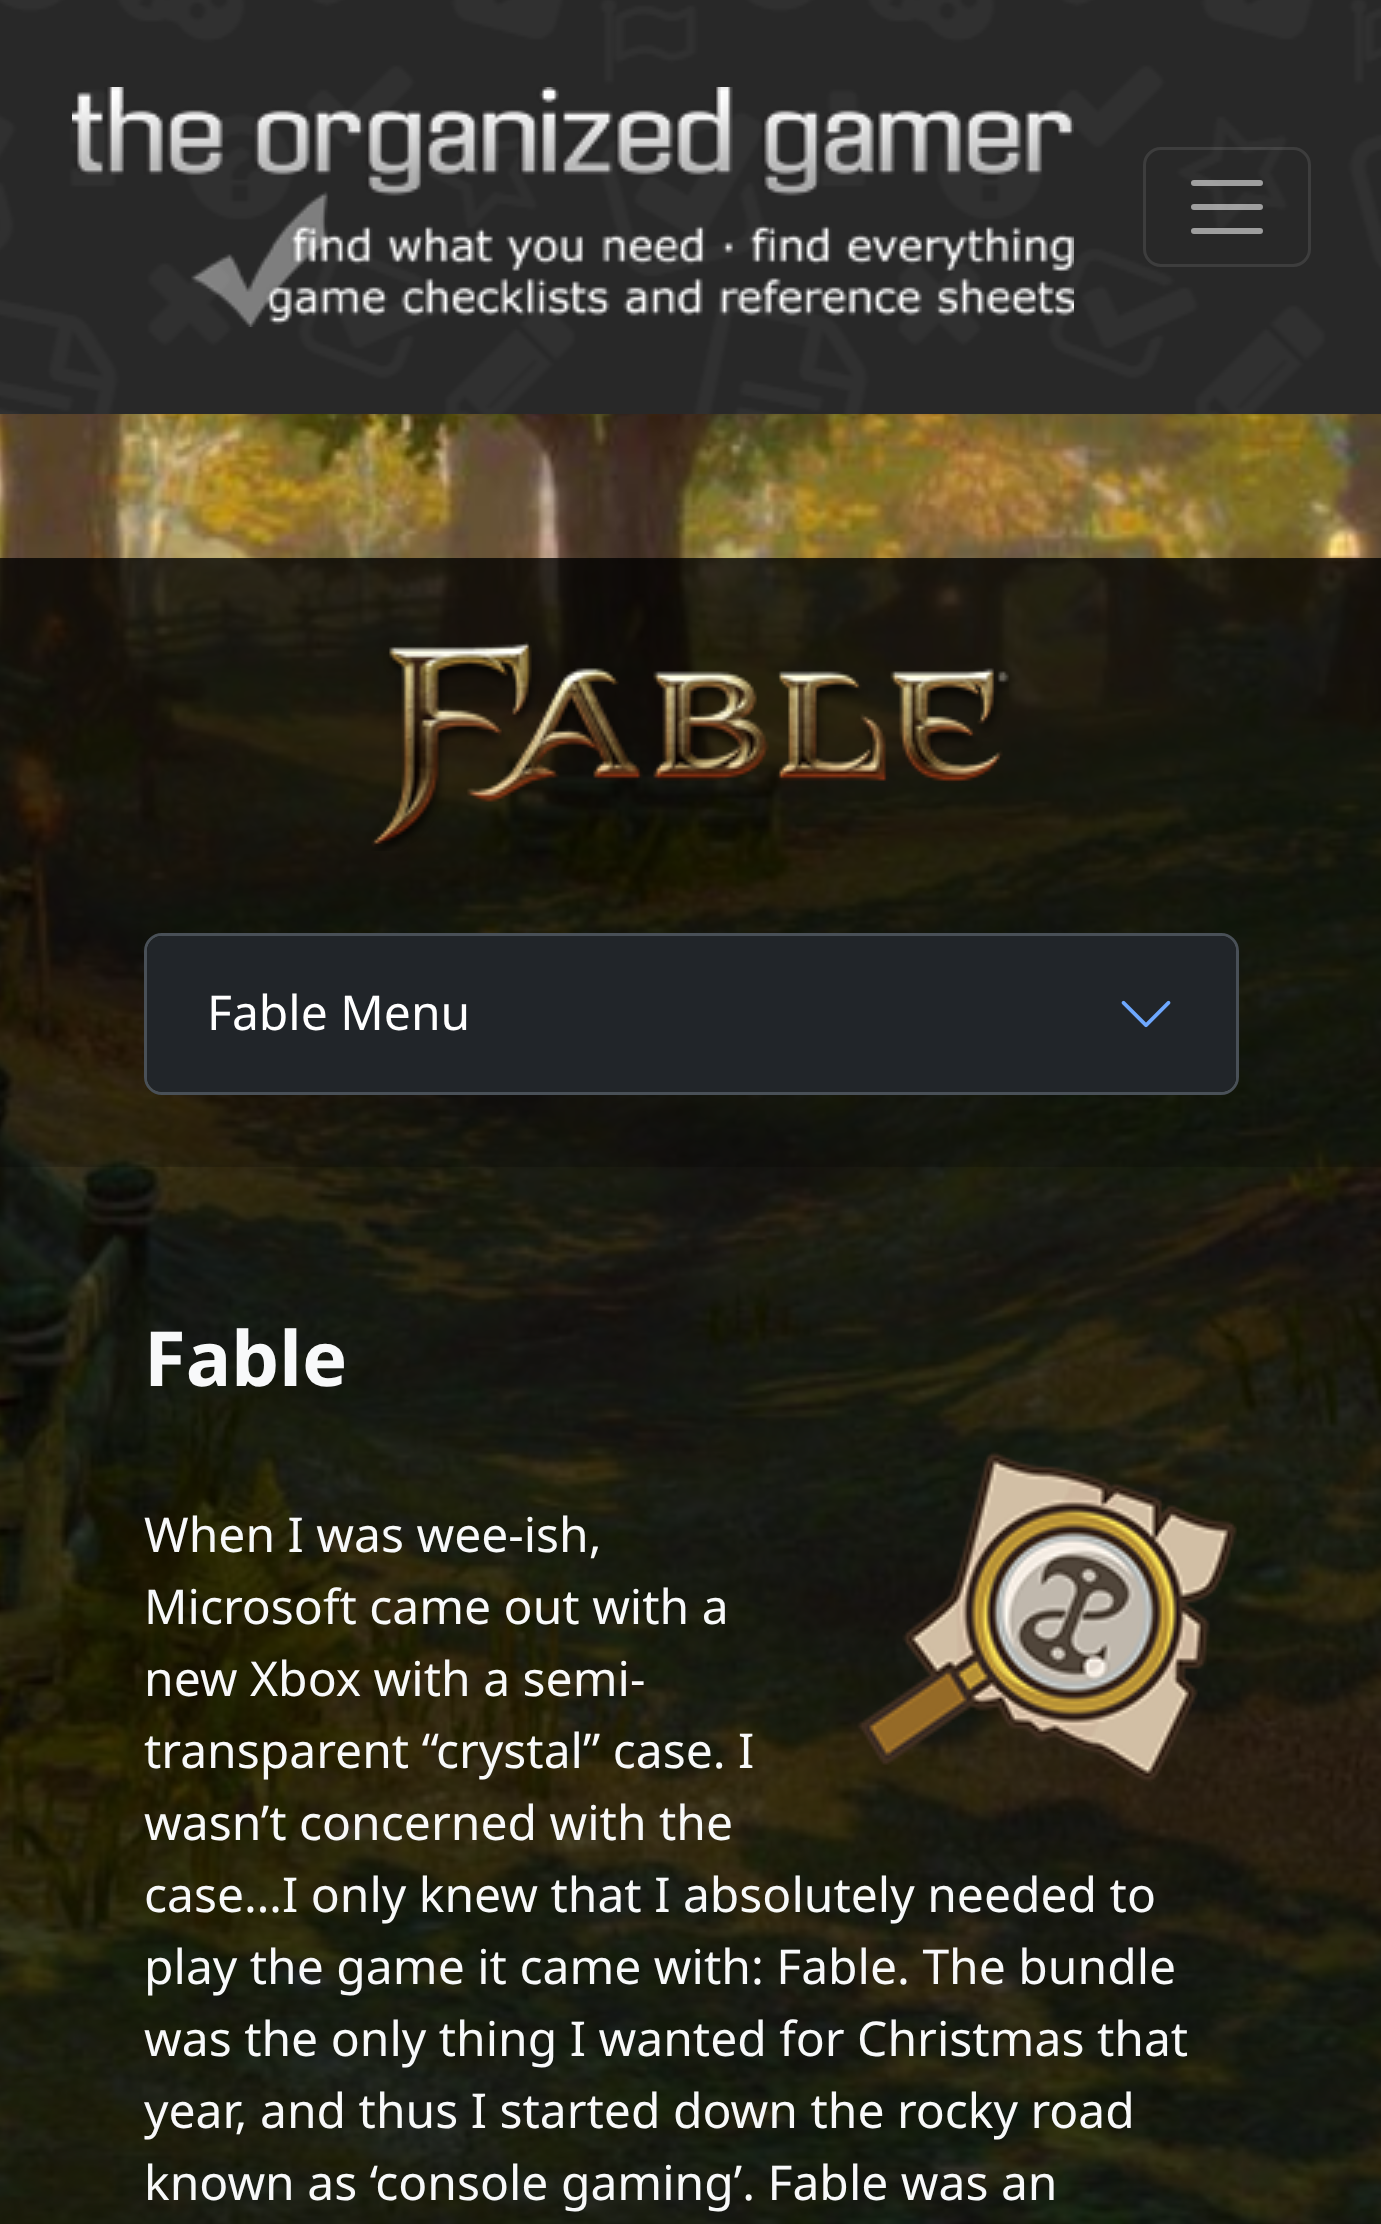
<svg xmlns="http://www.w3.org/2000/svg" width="1381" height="2224">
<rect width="100%" height="100%" fill="#fff"/>
<image x="0" y="0" width="1381" height="414" href="media/1.png"/>
<image x="72" y="87" width="1002" height="240" href="media/2.png"/>
<rect x="1144.5" y="148.5" width="165" height="117" rx="16.5" fill="none" stroke="#ffffff1a" stroke-width="3"/>
<path d="M1194 183h66m-66 24h66m-66 24h66" fill="none" stroke="#ffffff8c" stroke-width="6" stroke-linecap="round"/>
<image x="0" y="414" width="1381" height="1810" href="media/3.png"/>
<rect y="558" width="1381" height="609" fill="#000000c7"/>
<image x="371" y="641" width="638" height="210" href="media/4.png"/>
<rect x="145.5" y="934.5" width="1092" height="159" rx="16.5" fill="none" stroke="#495057" stroke-width="3"/>
<rect x="147" y="936" width="1089" height="156" rx="15" fill="#212529"/>
<text x="207" y="1030" style="font-family:Noto Sans;font-size:48px;fill:#fff">Fable Menu</text>
<image x="1121" y="1000" width="50" height="28" href="media/5.png"/>
<rect y="1167" width="1381" height="1057" fill="#000000b8"/>
<text x="144" y="1386" style="font-family:Noto Sans;font-size:76px;font-weight:bold;fill:#f8f9fa">Fable</text>
<image x="857" y="1451" width="380" height="331" href="media/6.png"/>
<text x="144" y="1552" style="font-family:Noto Sans;font-size:48px;fill:#f8f9fa">When I was wee-ish,</text>
<text x="144" y="1624" style="font-family:Noto Sans;font-size:48px;fill:#f8f9fa">Microsoft came out with a</text>
<text x="144" y="1696" style="font-family:Noto Sans;font-size:48px;fill:#f8f9fa">new Xbox with a semi-</text>
<text x="144" y="1768" style="font-family:Noto Sans;font-size:48px;fill:#f8f9fa">transparent “crystal” case. I</text>
<text x="144" y="1840" style="font-family:Noto Sans;font-size:48px;fill:#f8f9fa">wasn’t concerned with the</text>
<text x="144" y="1912" style="font-family:Noto Sans;font-size:48px;fill:#f8f9fa">case…I only knew that I absolutely needed to</text>
<text x="144" y="1984" style="font-family:Noto Sans;font-size:48px;fill:#f8f9fa">play the game it came with: Fable. The bundle</text>
<text x="144" y="2056" style="font-family:Noto Sans;font-size:48px;fill:#f8f9fa">was the only thing I wanted for Christmas that</text>
<text x="144" y="2128" style="font-family:Noto Sans;font-size:48px;fill:#f8f9fa">year, and thus I started down the rocky road</text>
<text x="144" y="2200" style="font-family:Noto Sans;font-size:48px;fill:#f8f9fa">known as ‘console gaming’. Fable was an</text>
</svg>
